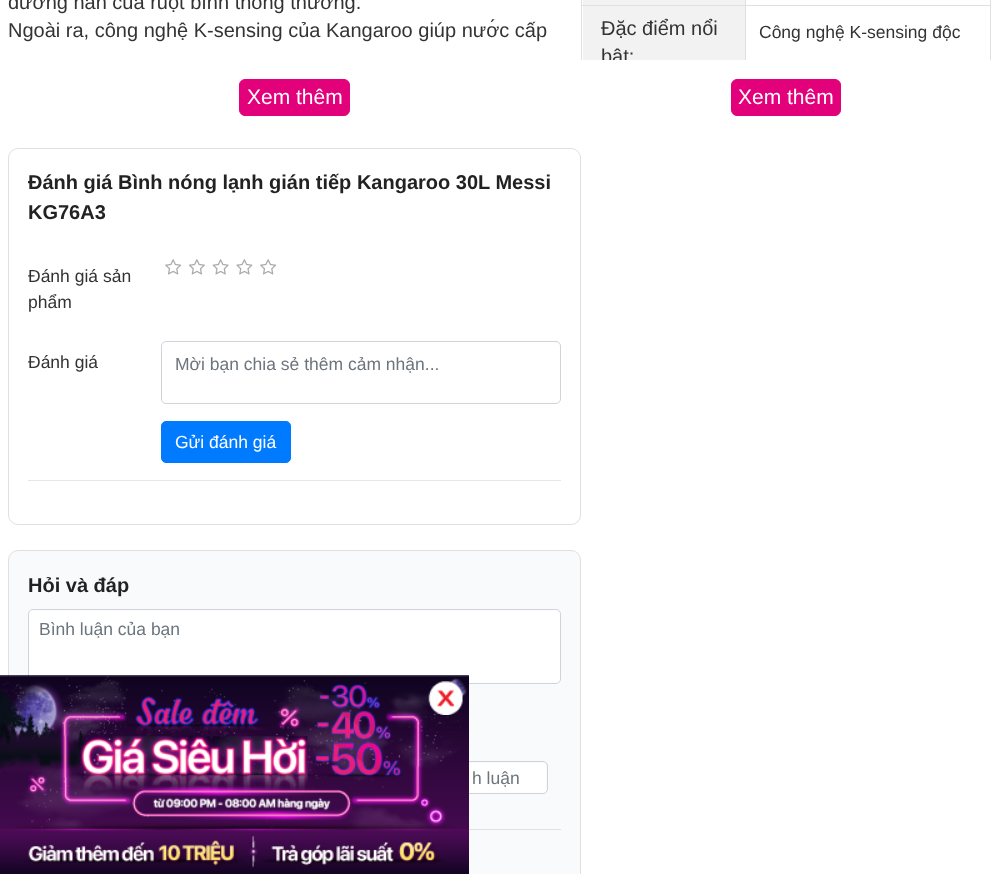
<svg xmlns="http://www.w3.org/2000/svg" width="998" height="874">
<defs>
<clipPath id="clip1"><rect x="581" width="410" height="60"/></clipPath>
</defs>
<rect width="100%" height="100%" fill="#fff"/>
<text x="8" y="9" style="font-family:Liberation Sans;font-size:20px;fill:#333">đường hàn của ruột bình thông thường.</text>
<text x="8" y="37" style="font-family:Liberation Sans;font-size:20px;fill:#333">Ngoài ra, công nghệ K-sensing của Kangaroo giúp nước cấp</text>
<rect x="239.5" y="79.5" width="110" height="36" rx="5.5" fill="#e3007b" stroke="#e3007b"/>
<text x="247" y="104" style="font-family:Liberation Sans;font-size:21px;fill:#fff">Xem thêm</text>
<rect x="8.5" y="148.5" width="572" height="376" rx="9.5" fill="none" stroke="#e0e0e0"/>
<text x="28" y="189" style="font-family:Liberation Sans;font-size:20px;font-weight:bold;fill:#222">Đánh giá Bình nóng lạnh gián tiếp Kangaroo 30L Messi</text>
<text x="28" y="219" style="font-family:Liberation Sans;font-size:20px;font-weight:bold;fill:#222">KG76A3</text>
<text x="28" y="282" style="font-family:Liberation Sans;font-size:17.5px;fill:#333">Đánh giá sản</text>
<text x="28" y="308" style="font-family:Liberation Sans;font-size:17.5px;fill:#333">phẩm</text>
<image x="165" y="259" width="17" height="16" href="media/1.png"/>
<image x="188" y="259" width="17" height="16" href="media/2.png"/>
<image x="212" y="259" width="17" height="16" href="media/3.png"/>
<image x="236" y="259" width="17" height="16" href="media/4.png"/>
<image x="260" y="259" width="17" height="16" href="media/1.png"/>
<text x="28" y="368" style="font-family:Liberation Sans;font-size:17.5px;fill:#333">Đánh giá</text>
<rect x="161.5" y="341.5" width="399" height="62" rx="4.5" fill="none" stroke="#ced4da"/>
<text x="175" y="370" style="font-family:Liberation Sans;font-size:17.5px;fill:#6c757d">Mời bạn chia sẻ thêm cảm nhận...</text>
<rect x="161.5" y="421.5" width="129" height="41" rx="4.5" fill="#007bff" stroke="#007bff"/>
<text x="175" y="448" style="font-family:Liberation Sans;font-size:17.5px;fill:#fff">Gửi đánh giá</text>
<rect x="28" y="480" width="533" height="1" fill="#e6e6e6"/>
<rect x="8.5" y="550.5" width="572" height="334" rx="9.5" fill="#f9fafb" stroke="#e0e0e0"/>
<text x="28" y="592" style="font-family:Liberation Sans;font-size:20px;font-weight:bold;fill:#222">Hỏi và đáp</text>
<rect x="29" y="610" width="531" height="73" rx="3" fill="#fff"/>
<rect x="28.5" y="609.5" width="532" height="74" rx="4.5" fill="none" stroke="#ced4da"/>
<text x="39" y="635" style="font-family:Liberation Sans;font-size:17.5px;fill:#6c757d">Bình luận của bạn</text>
<rect x="296" y="763" width="250" height="30" rx="3" fill="#fff"/>
<rect x="295.5" y="761.5" width="252" height="32" rx="4.5" fill="none" stroke="#ced4da"/>
<text x="472" y="784" style="font-family:Liberation Sans;font-size:17.5px;fill:#6c757d">h luận</text>
<rect x="469" y="829" width="92" height="1" fill="#e0e1e2"/>
<rect x="583" width="162" height="5" fill="#f2f2f2"/>
<rect x="745" y="5" width="246" height="1" fill="#e0e0e0"/>
<rect x="745" y="5" width="1" height="55" fill="#e0e0e0"/>
<rect x="581" y="5" width="165" height="1" fill="#e0e0e0"/>
<rect x="745" width="1" height="6" fill="#e0e0e0"/>
<rect x="583" y="6" width="162" height="54" fill="#f2f2f2"/>
<rect x="581" width="1" height="60" fill="#e0e0e0"/>
<text x="601" y="35" style="font-family:Liberation Sans;font-size:20px;fill:#333">Đặc điểm nổi</text>
<g clip-path="url(#clip1)">
<text x="601" y="63" style="font-family:Liberation Sans;font-size:20px;fill:#333">bật:</text>
</g>
<rect x="990" width="1" height="60" fill="#e0e0e0"/>
<text x="759" y="38" style="font-family:Liberation Sans;font-size:17.5px;fill:#333">Công nghệ K-sensing độc</text>
<rect x="731.5" y="79.5" width="109" height="36" rx="5.5" fill="#e3007b" stroke="#e3007b"/>
<text x="738" y="104" style="font-family:Liberation Sans;font-size:21px;fill:#fff">Xem thêm</text>
<image x="0" y="675" width="469" height="199" href="media/5.png"/>
<image x="428" y="681" width="35" height="34" href="media/6.png"/>
</svg>
